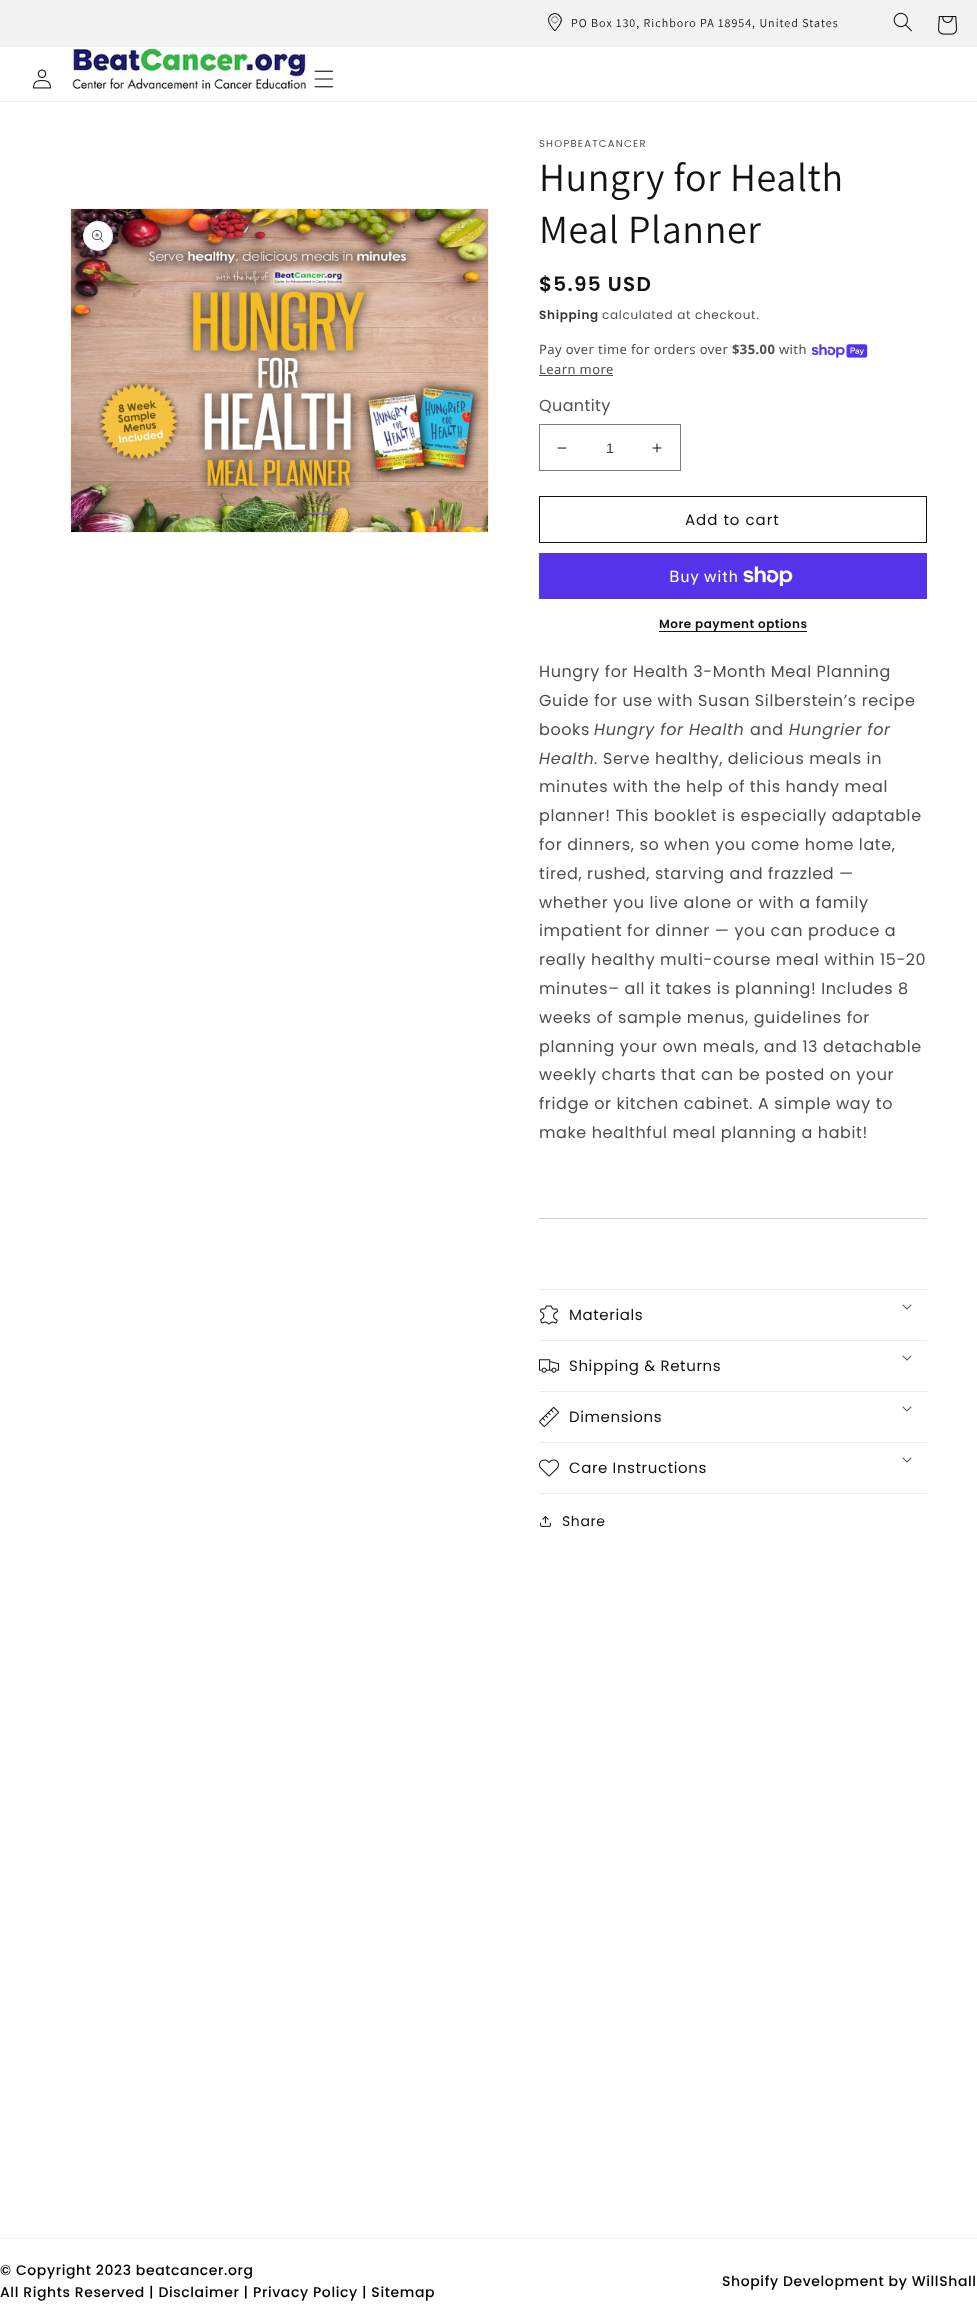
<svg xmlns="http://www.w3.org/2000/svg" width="977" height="2323">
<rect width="100%" height="100%" fill="#fff"/>
<rect width="977" height="47" fill="#f2f2f2"/>
<image x="548" y="13" width="14" height="18" href="media/1.png"/>
<text x="571" y="27" style="font-family:Assistant;font-size:12px;letter-spacing:1px;fill:#121212">PO Box 130, Richboro PA 18954, United States</text>
<image x="893" y="12" width="19" height="20" href="media/2.png"/>
<image x="938" y="16" width="20" height="19" href="media/3.png"/>
<rect y="101" width="977" height="1" fill="#ececec"/>
<image x="33" y="69" width="18" height="20" href="media/4.png"/>
<image x="72" y="49" width="235" height="42" href="media/5.png"/>
<image x="314" y="70" width="20" height="18" href="media/6.png"/>
<rect x="70.5" y="208.5" width="418" height="324" fill="none" stroke="#f3f3f3"/>
<image x="71" y="209" width="417" height="323" href="media/7.png"/>
<circle cx="98" cy="236" r="15" fill="#fff"/>
<circle cx="98" cy="236" r="14.5" fill="none" stroke="#1212121a"/>
<image x="92" y="230" width="12" height="12" href="media/8.png"/>
<text x="539" y="147" style="font-family:Poppins;font-size:10px;letter-spacing:1.25px;fill:#4d4d4d">SHOPBEATCANCER</text>
<text x="539" y="191" style="font-family:Assistant;font-size:40px;letter-spacing:0.6px;fill:#121212">Hungry for Health</text>
<text x="539" y="243" style="font-family:Assistant;font-size:40px;letter-spacing:0.6px;fill:#121212">Meal Planner</text>
<text x="539" y="291" style="font-family:Poppins;font-size:20px;font-weight:600;letter-spacing:1.25px;fill:#121212">$5.95 USD</text>
<text x="539" y="319" style="font-family:Poppins;font-size:12px;font-weight:600;letter-spacing:0.7px;fill:#363636">Shipping</text>
<text x="602" y="319" style="font-family:Poppins;font-size:12px;letter-spacing:0.7px;fill:#4d4d4d">calculated at checkout.</text>
<text x="539" y="354" style="font-family:Noto Sans;font-size:13px;letter-spacing:0.4px;fill:#4d4d4d">Pay over time for orders over</text>
<text x="732" y="354" style="font-family:Noto Sans;font-size:13px;font-weight:bold;letter-spacing:0.4px;fill:#4d4d4d">$35.00</text>
<text x="779" y="354" style="font-family:Noto Sans;font-size:13px;letter-spacing:0.4px;fill:#4d4d4d">with</text>
<image x="811" y="344" width="57" height="14" href="media/9.png"/>
<text x="539" y="374" style="font-family:Noto Sans;font-size:13px;letter-spacing:0.4px;fill:#4d4d4d">Learn more</text>
<rect x="539" y="375" width="74" height="1" fill="#4d4d4d"/>
<text x="539" y="411" style="font-family:Poppins;font-size:16px;letter-spacing:0.4px;fill:#535353">Quantity</text>
<image x="557" y="447" width="10" height="2" href="media/10.png"/>
<image x="652" y="443" width="10" height="10" href="media/11.png"/>
<rect x="539.5" y="424.5" width="141" height="46" fill="none" stroke="#7d7d7d"/>
<text x="606" y="453" style="font-family:Liberation Sans;font-size:14px;fill:#363636">1</text>
<rect x="539.5" y="496.5" width="387" height="46" fill="none" stroke="#121212"/>
<text x="685" y="525" style="font-family:Poppins;font-size:15px;letter-spacing:1px;fill:#121212">Add to cart</text>
<rect x="539" y="553" width="388" height="46" fill="#5433eb"/>
<text x="669" y="582" style="font-family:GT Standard;font-size:16px;letter-spacing:0.6px;fill:#fff">Buy with</text>
<image x="743" y="566" width="50" height="20" href="media/12.png"/>
<rect x="659" y="631" width="148" height="1" fill="#121212"/>
<text x="659" y="628" style="font-family:Poppins;font-size:12px;font-weight:600;letter-spacing:0.5px;fill:#121212">More payment options</text>
<text x="539" y="677" style="font-family:Poppins;font-size:16px;letter-spacing:0.6px;fill:#4d4d4d">Hungry for Health 3-Month Meal Planning</text>
<text x="539" y="706" style="font-family:Poppins;font-size:16px;letter-spacing:0.6px;fill:#4d4d4d">Guide for use with Susan Silberstein’s recipe</text>
<text x="539" y="735" style="font-family:Poppins;font-size:16px;letter-spacing:0.6px;fill:#4d4d4d">books</text>
<text x="594" y="735" style="font-family:Poppins;font-size:16px;font-style:italic;letter-spacing:0.6px;fill:#4d4d4d">Hungry for Health</text>
<text x="750" y="735" style="font-family:Poppins;font-size:16px;letter-spacing:0.6px;fill:#4d4d4d">and</text>
<text x="789" y="735" style="font-family:Poppins;font-size:16px;font-style:italic;letter-spacing:0.6px;fill:#4d4d4d">Hungrier for</text>
<text x="539" y="764" style="font-family:Poppins;font-size:16px;font-style:italic;letter-spacing:0.6px;fill:#4d4d4d">Health.</text>
<text x="603" y="764" style="font-family:Poppins;font-size:16px;letter-spacing:0.6px;fill:#4d4d4d">Serve healthy, delicious meals in</text>
<text x="539" y="792" style="font-family:Poppins;font-size:16px;letter-spacing:0.6px;fill:#4d4d4d">minutes with the help of this handy meal</text>
<text x="539" y="821" style="font-family:Poppins;font-size:16px;letter-spacing:0.6px;fill:#4d4d4d">planner! This booklet is especially adaptable</text>
<text x="539" y="850" style="font-family:Poppins;font-size:16px;letter-spacing:0.6px;fill:#4d4d4d">for dinners, so when you come home late,</text>
<text x="539" y="879" style="font-family:Poppins;font-size:16px;letter-spacing:0.6px;fill:#4d4d4d">tired, rushed, starving and frazzled —</text>
<text x="539" y="908" style="font-family:Poppins;font-size:16px;letter-spacing:0.6px;fill:#4d4d4d">whether you live alone or with a family</text>
<text x="539" y="936" style="font-family:Poppins;font-size:16px;letter-spacing:0.6px;fill:#4d4d4d">impatient for dinner — you can produce a</text>
<text x="539" y="965" style="font-family:Poppins;font-size:16px;letter-spacing:0.6px;fill:#4d4d4d">really healthy multi-course meal within 15-20</text>
<text x="539" y="994" style="font-family:Poppins;font-size:16px;letter-spacing:0.6px;fill:#4d4d4d">minutes– all it takes is planning! Includes 8</text>
<text x="539" y="1023" style="font-family:Poppins;font-size:16px;letter-spacing:0.6px;fill:#4d4d4d">weeks of sample menus, guidelines for</text>
<text x="539" y="1052" style="font-family:Poppins;font-size:16px;letter-spacing:0.6px;fill:#4d4d4d">planning your own meals, and 13 detachable</text>
<text x="539" y="1080" style="font-family:Poppins;font-size:16px;letter-spacing:0.6px;fill:#4d4d4d">weekly charts that can be posted on your</text>
<text x="539" y="1109" style="font-family:Poppins;font-size:16px;letter-spacing:0.6px;fill:#4d4d4d">fridge or kitchen cabinet. A simple way to</text>
<text x="539" y="1138" style="font-family:Poppins;font-size:16px;letter-spacing:0.6px;fill:#4d4d4d">make healthful meal planning a habit!</text>
<rect x="539" y="1218" width="388" height="1" fill="#d0d0d0"/>
<rect x="539" y="1289" width="388" height="1" fill="#ececec"/>
<rect x="539" y="1340" width="388" height="1" fill="#ececec"/>
<image x="902" y="1304" width="10" height="6" href="media/13.png"/>
<image x="540" y="1305" width="18" height="20" href="media/14.png"/>
<text x="569" y="1320" style="font-family:Poppins;font-size:15px;letter-spacing:0.6px;fill:#121212">Materials</text>
<rect x="539" y="1391" width="388" height="1" fill="#ececec"/>
<image x="902" y="1355" width="10" height="6" href="media/13.png"/>
<image x="539" y="1359" width="20" height="14" href="media/15.png"/>
<text x="569" y="1371" style="font-family:Poppins;font-size:15px;letter-spacing:0.6px;fill:#121212">Shipping &amp; Returns</text>
<rect x="539" y="1442" width="388" height="1" fill="#ececec"/>
<image x="902" y="1406" width="10" height="6" href="media/13.png"/>
<image x="539" y="1407" width="20" height="20" href="media/16.png"/>
<text x="569" y="1422" style="font-family:Poppins;font-size:15px;letter-spacing:0.6px;fill:#121212">Dimensions</text>
<rect x="539" y="1493" width="388" height="1" fill="#ececec"/>
<image x="902" y="1457" width="10" height="6" href="media/13.png"/>
<image x="539" y="1459" width="20" height="18" href="media/17.png"/>
<text x="569" y="1473" style="font-family:Poppins;font-size:15px;letter-spacing:0.6px;fill:#121212">Care Instructions</text>
<image x="540" y="1516" width="11" height="11" href="media/18.png"/>
<text x="562" y="1526" style="font-family:Poppins;font-size:14px;letter-spacing:0.6px;fill:#121212">Share</text>
<rect y="2238" width="977" height="1" fill="#f5f5f5"/>
<text x="0" y="2275" style="font-family:Poppins;font-size:14px;font-weight:500;letter-spacing:0.6px;fill:#000">© Copyright 2023 beatcancer.org</text>
<text x="0" y="2297" style="font-family:Poppins;font-size:14px;font-weight:500;letter-spacing:0.6px;fill:#000">All Rights Reserved | Disclaimer | Privacy Policy | Sitemap</text>
<text x="722" y="2286" style="font-family:Poppins;font-size:14px;font-weight:500;letter-spacing:0.6px;fill:#000">Shopify Development by WillShall</text>
</svg>
